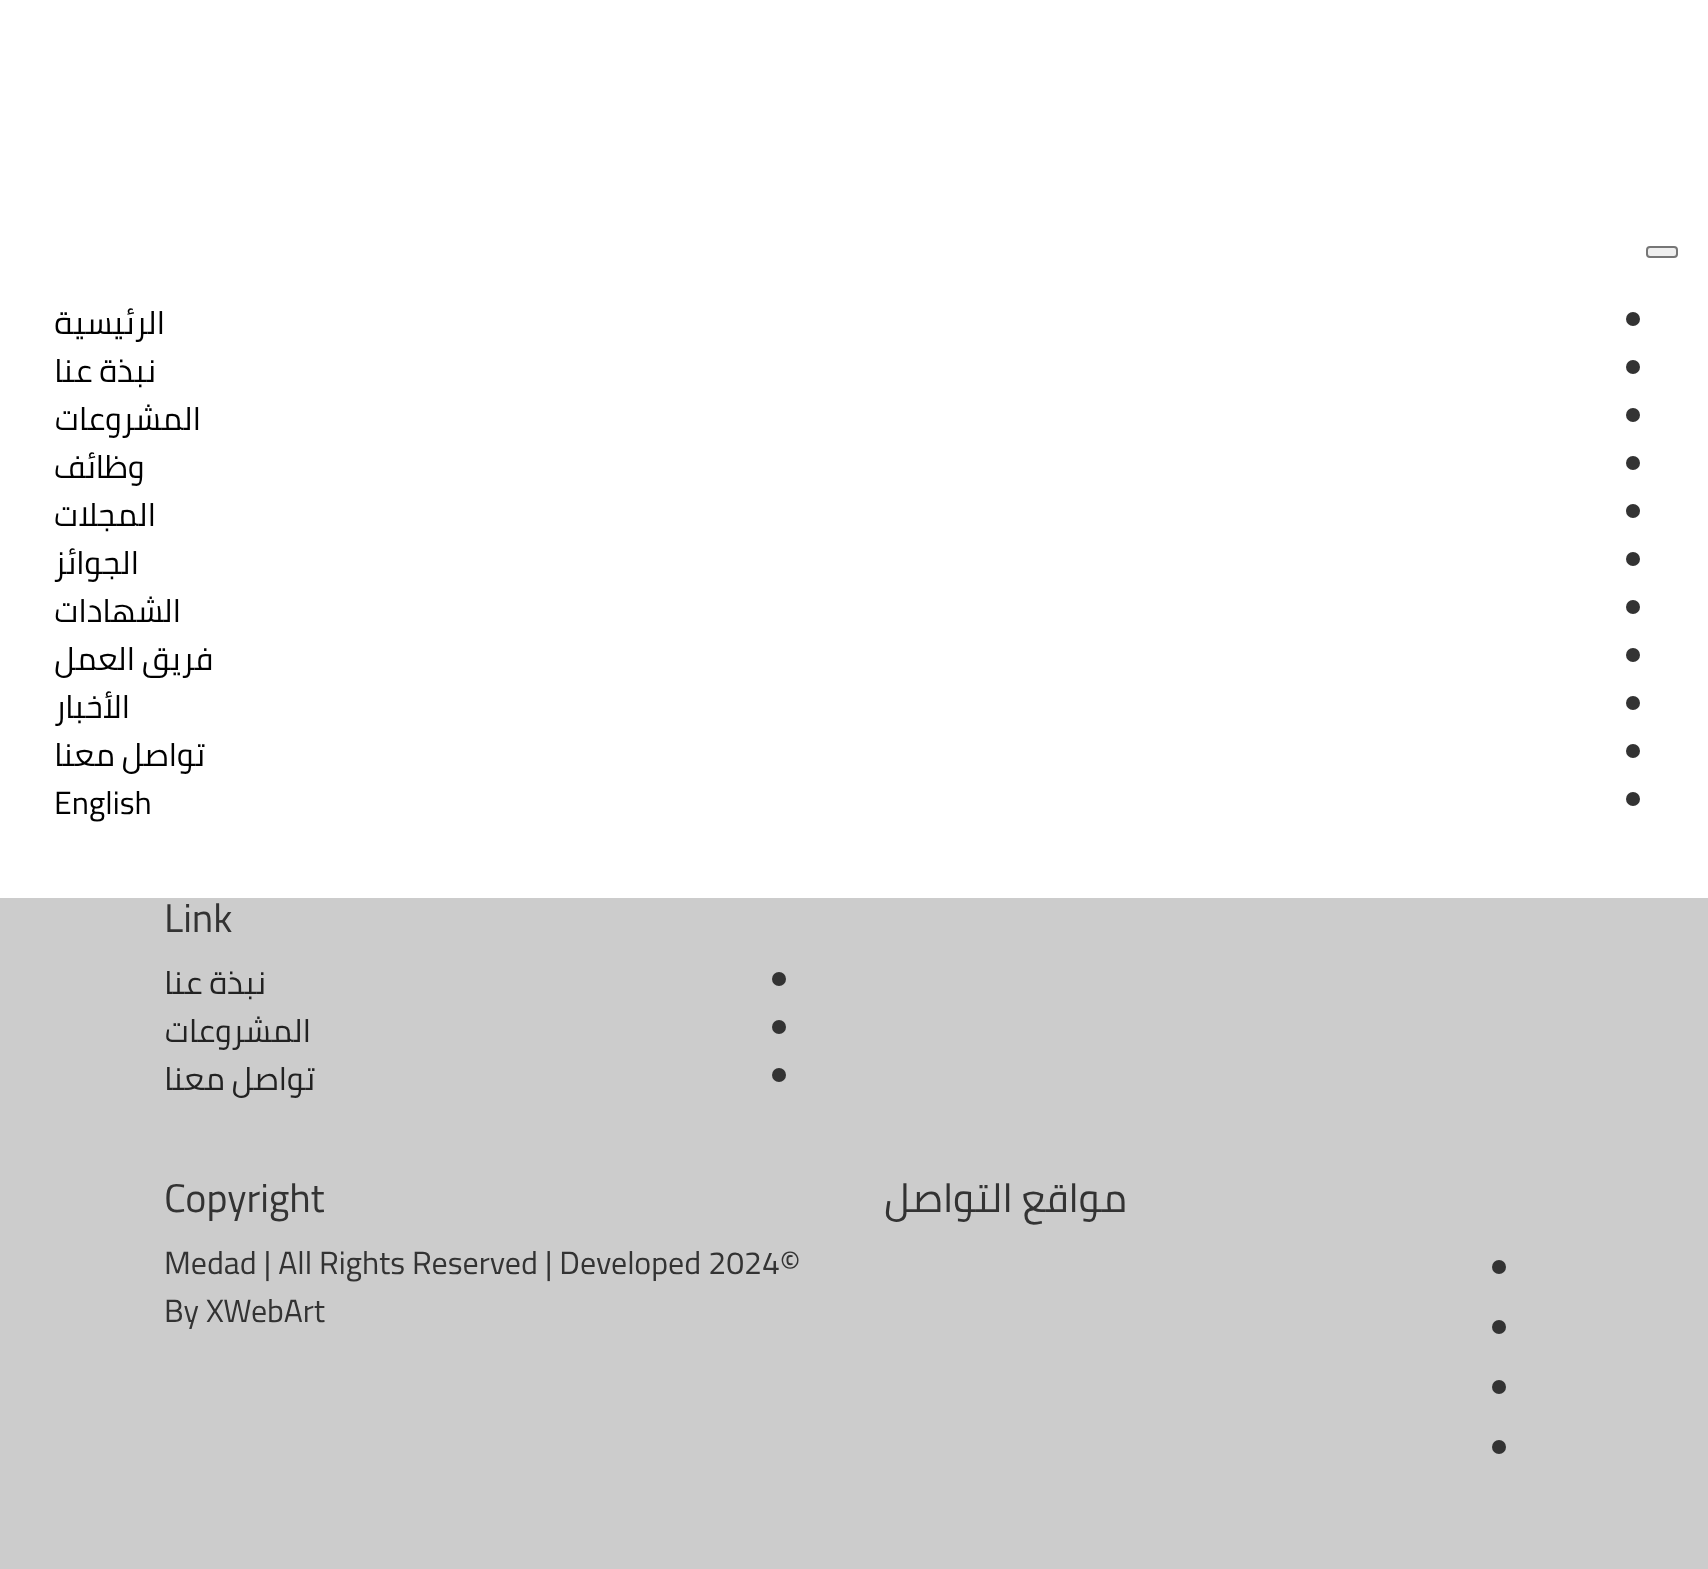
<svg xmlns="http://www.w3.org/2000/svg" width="1708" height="1569">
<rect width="100%" height="100%" fill="#fff"/>
<rect x="1647" y="247" width="30" height="10" rx="3" fill="#efefef" stroke="#767676" stroke-width="2"/>
<circle cx="1633" cy="319" r="7" fill="#333"/>
<text x="165" y="334" style="font-family:Cairo;font-size:32px;direction:rtl;fill:#000">الرئيسية</text>
<circle cx="1633" cy="367" r="7" fill="#333"/>
<text x="156" y="382" style="font-family:Cairo;font-size:32px;direction:rtl;fill:#000">نبذة عنا</text>
<circle cx="1633" cy="415" r="7" fill="#333"/>
<text x="201" y="430" style="font-family:Cairo;font-size:32px;direction:rtl;fill:#000">المشروعات</text>
<circle cx="1633" cy="463" r="7" fill="#333"/>
<text x="144" y="478" style="font-family:Cairo;font-size:32px;direction:rtl;fill:#000">وظائف</text>
<circle cx="1633" cy="511" r="7" fill="#333"/>
<text x="156" y="526" style="font-family:Cairo;font-size:32px;direction:rtl;fill:#000">المجلات</text>
<circle cx="1633" cy="559" r="7" fill="#333"/>
<text x="139" y="574" style="font-family:Cairo;font-size:32px;direction:rtl;fill:#000">الجوائز</text>
<circle cx="1633" cy="607" r="7" fill="#333"/>
<text x="181" y="622" style="font-family:Cairo;font-size:32px;direction:rtl;fill:#000">الشهادات</text>
<circle cx="1633" cy="655" r="7" fill="#333"/>
<text x="213" y="670" style="font-family:Cairo;font-size:32px;direction:rtl;fill:#000">فريق العمل</text>
<circle cx="1633" cy="703" r="7" fill="#333"/>
<text x="130" y="718" style="font-family:Cairo;font-size:32px;direction:rtl;fill:#000">الأخبار</text>
<circle cx="1633" cy="751" r="7" fill="#333"/>
<text x="205" y="766" style="font-family:Cairo;font-size:32px;direction:rtl;fill:#000">تواصل معنا</text>
<circle cx="1633" cy="799" r="7" fill="#333"/>
<text x="54" y="814" style="font-family:Cairo;font-size:32px;fill:#000">English</text>
<rect y="898" width="1708" height="671" fill="#ccc"/>
<text x="164" y="932" style="font-family:Cairo;font-size:40px;fill:#333">Link</text>
<circle cx="779" cy="979" r="7" fill="#333"/>
<text x="266" y="994" style="font-family:Cairo;font-size:32px;direction:rtl;fill:#222">نبذة عنا</text>
<circle cx="779" cy="1027" r="7" fill="#333"/>
<text x="311" y="1042" style="font-family:Cairo;font-size:32px;direction:rtl;fill:#222">المشروعات</text>
<circle cx="779" cy="1075" r="7" fill="#333"/>
<text x="315" y="1090" style="font-family:Cairo;font-size:32px;direction:rtl;fill:#222">تواصل معنا</text>
<text x="1127" y="1212" style="font-family:Cairo;font-size:40px;direction:rtl;fill:#333">مواقع التواصل</text>
<circle cx="1499" cy="1267" r="7" fill="#333"/>
<circle cx="1499" cy="1327" r="7" fill="#333"/>
<circle cx="1499" cy="1387" r="7" fill="#333"/>
<circle cx="1499" cy="1447" r="7" fill="#333"/>
<text x="164" y="1212" style="font-family:Cairo;font-size:40px;fill:#333">Copyright</text>
<text x="164" y="1274" style="font-family:Cairo;font-size:32px;fill:#333">Medad | All Rights Reserved | Developed 2024©</text>
<text x="164" y="1322" style="font-family:Cairo;font-size:32px;fill:#333">By XWebArt</text>
</svg>
